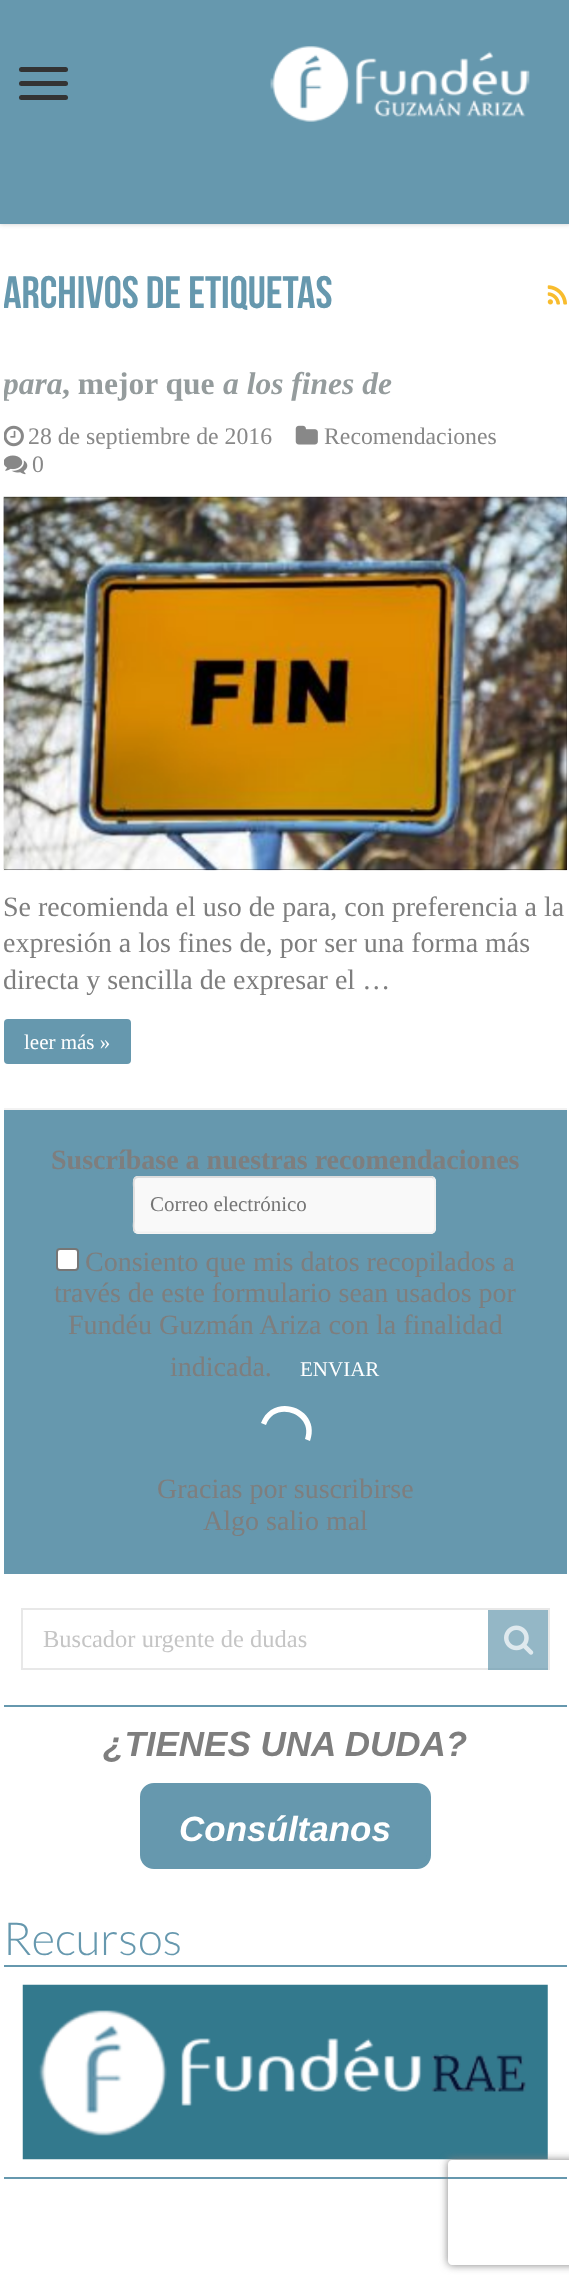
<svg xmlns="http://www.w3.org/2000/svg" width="569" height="2288">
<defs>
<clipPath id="clip1"><rect x="4" y="268" width="563" height="58"/></clipPath>
<clipPath id="clip2"><rect x="4" y="326" width="563" height="784"/></clipPath>
<clipPath id="clip3"><path d="M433 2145h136v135h-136zm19 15h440c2 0 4 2 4 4v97c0 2-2 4-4 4h-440c-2 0-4-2-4-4v-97c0-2 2-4 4-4z" clip-rule="evenodd"/></clipPath>
</defs>
<rect width="100%" height="100%" fill="#fff"/>
<rect width="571" height="224" fill="#cacaca" filter="blur(2.5px)"/>
<rect width="569" height="224" fill="#6698ae"/>
<rect x="19" y="67" width="49" height="5" rx="2.5" fill="#333"/>
<rect x="19" y="81" width="49" height="5" rx="2.5" fill="#333"/>
<rect x="19" y="95" width="49" height="5" rx="2.5" fill="#333"/>
<image x="270" y="46" width="260" height="76" href="media/1.png"/>
<g clip-path="url(#clip1)">
<text x="3" y="308" style="font-family:Bebas Neue;font-size:45.5px;font-weight:bold;fill:#6698ae">Archivos de etiquetas</text>
</g>
<image x="547" y="285" width="20" height="20" href="media/2.png"/>
<rect x="4" y="1108" width="563" height="2" fill="#f2f2f2"/>
<g clip-path="url(#clip2)">
<text x="3" y="394" style="font-family:Tinos;font-size:31.5px;font-weight:bold;font-style:italic;fill:#959c9d">para</text>
</g>
<text x="62" y="394" style="font-family:Tinos;font-size:31.5px;font-weight:bold;fill:#959c9d">, mejor que</text>
<text x="223" y="394" style="font-family:Tinos;font-size:31.5px;font-weight:bold;font-style:italic;fill:#959c9d">a los fines de</text>
<image x="4" y="425" width="20" height="22" href="media/3.png"/>
<text x="28" y="444" style="font-family:Tinos;font-size:23.75px;fill:#888">28 de septiembre de 2016</text>
<image x="295" y="425" width="23" height="20" href="media/4.png"/>
<text x="324" y="444" style="font-family:Tinos;font-size:23.75px;fill:#888">Recomendaciones</text>
<image x="4" y="455" width="24" height="20" href="media/5.png"/>
<text x="32" y="472" style="font-family:Tinos;font-size:23.75px;fill:#888">0</text>
<rect x="4" y="497" width="563" height="373" fill="#000"/>
<image x="3" y="496" width="564" height="375" href="media/6.png"/>
<text x="3" y="916" style="font-family:Tinos;font-size:28px;fill:#7e7e7e">Se recomienda el uso de para, con preferencia a la</text>
<text x="3" y="952" style="font-family:Tinos;font-size:28px;fill:#7e7e7e">expresión a los fines de, por ser una forma más</text>
<g clip-path="url(#clip2)">
<text x="3" y="989" style="font-family:Tinos;font-size:28px;fill:#7e7e7e">directa y sencilla de expresar el …</text>
</g>
<rect x="4" y="1019" width="127" height="45" rx="4" fill="#6698ae"/>
<text x="24" y="1049" style="font-family:Liberation Serif;font-size:21px;fill:#fff">leer más »</text>
<rect x="4" y="1110" width="563" height="464" fill="#6698ae"/>
<text x="51" y="1169" style="font-family:Tinos;font-size:28px;font-weight:bold;fill:#7e7e7e">Suscríbase a nuestras recomendaciones</text>
<rect x="133" y="1176" width="303" height="58" rx="5" fill="#f9f9f9"/>
<path d="M433.5 1178c2.5 2.5 1.5 9 1.5 11v31.5c0 3.5 1.5 12.5-4.5 12.5l-293.5-.5l-2-1" fill="none" stroke="#f1f1f1" stroke-width="1.8"/>
<path d="M135 1231.5c-2.5-2.5-1-9-1-11v-31.5c0-3-2-12 4-12h294l1.5 1" fill="none" stroke="#ddd" stroke-width="1.8"/>
<text x="150" y="1211" style="font-family:Liberation Serif;font-size:21px;fill:#757575">Correo electrónico</text>
<rect x="57" y="1249" width="21" height="21" rx="3" fill="#fff" stroke="#767676" stroke-width="2"/>
<text x="85" y="1271" style="font-family:Tinos;font-size:28px;fill:#7e7e7e">Consiento que mis datos recopilados a</text>
<text x="54" y="1302" style="font-family:Tinos;font-size:28px;fill:#7e7e7e">través de este formulario sean usados por</text>
<text x="68" y="1334" style="font-family:Tinos;font-size:28px;fill:#7e7e7e">Fundéu Guzmán Ariza con la finalidad</text>
<text x="170" y="1376" style="font-family:Tinos;font-size:28px;fill:#7e7e7e">indicada.</text>
<text x="300" y="1376" style="font-family:Liberation Serif;font-size:21px;fill:#fff">ENVIAR</text>
<path d="M310 1441c12-33-37-50-49-18l5 2c9-25 48-11 39 14z" fill="#fff"/>
<text x="157" y="1498" style="font-family:Tinos;font-size:28px;fill:#7e7e7e">Gracias por suscribirse</text>
<text x="203" y="1530" style="font-family:Tinos;font-size:28px;fill:#7e7e7e">Algo salio mal</text>
<rect x="22" y="1609" width="527" height="60" fill="none" stroke="#e8e8e8" stroke-width="2"/>
<text x="43" y="1647" style="font-family:Liberation Serif;font-size:24.5px;fill:#c5c5c5">Buscador urgente de dudas</text>
<rect x="488" y="1610" width="60" height="60" fill="#6698aeb3"/>
<image x="504" y="1625" width="30" height="30" href="media/7.png"/>
<rect x="4" y="1705" width="563" height="2" fill="#6698ae"/>
<text x="103" y="1756" style="font-family:Liberation Sans;font-size:35px;font-weight:bold;font-style:italic;fill:#7e7e7e">¿TIENES UNA DUDA?</text>
<rect x="142" y="1785" width="287" height="82" rx="12" fill="#6698ae" stroke="#6698ae" stroke-width="4"/>
<text x="179" y="1841" style="font-family:Liberation Sans;font-size:35px;font-weight:bold;font-style:italic;fill:#fff">Consúltanos</text>
<text x="3" y="1955" style="font-family:Lato;font-size:45.5px;font-weight:300;fill:#6698ae">Recursos</text>
<rect x="4" y="1965" width="563" height="2" fill="#6698ae"/>
<image x="22" y="1984" width="526" height="176" href="media/8.png"/>
<rect x="4" y="2177" width="563" height="2" fill="#6698ae"/>
<g clip-path="url(#clip3)">
<rect x="448" y="2160" width="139" height="105" rx="4" fill="#808080" filter="blur(4.5px)"/>
</g>
</svg>
